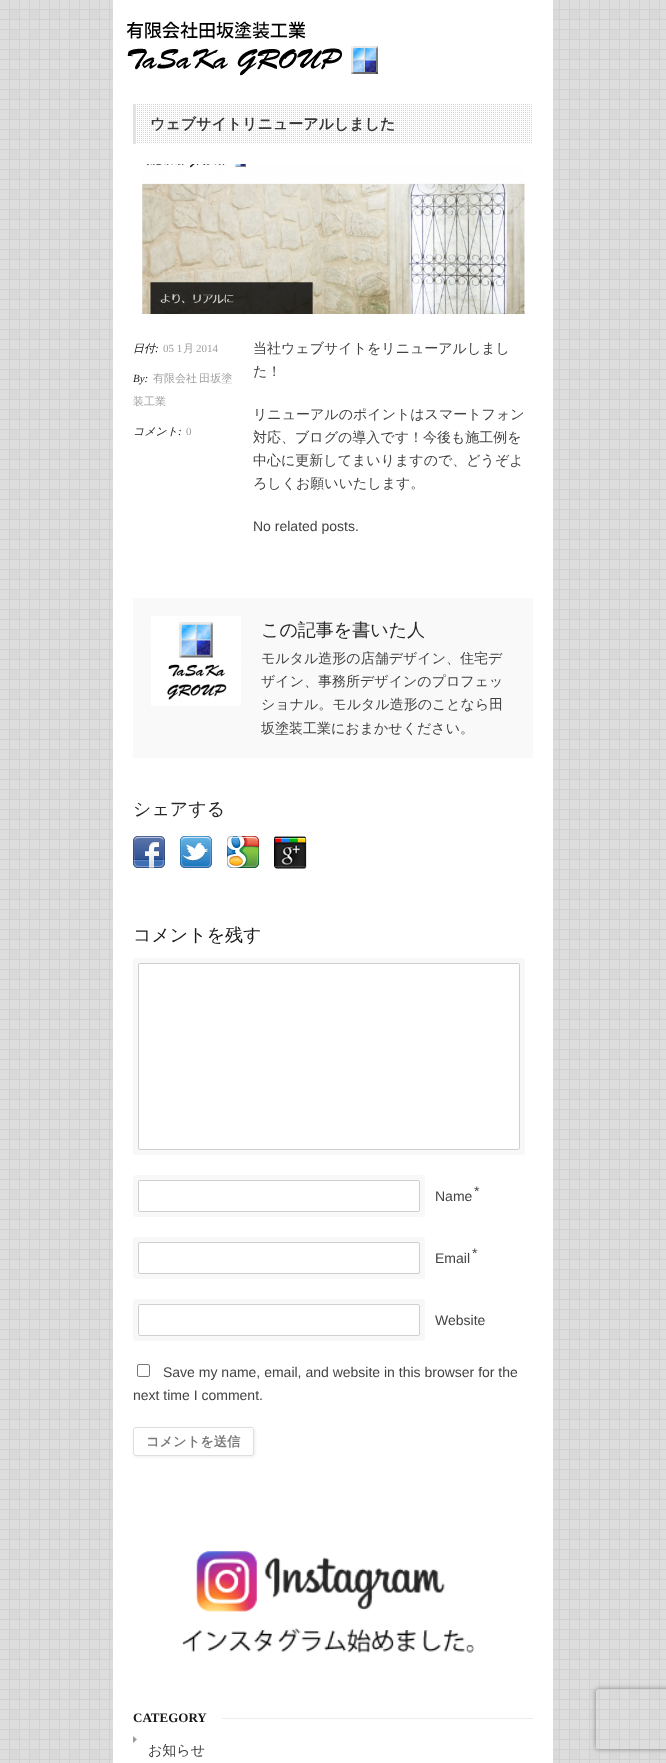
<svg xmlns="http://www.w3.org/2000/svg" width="666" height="1763">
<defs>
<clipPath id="clip1"><path d="M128 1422h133v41h-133zm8 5h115c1.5 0 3 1.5 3 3v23c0 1.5-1.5 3-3 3h-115c-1.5 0-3-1.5-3-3v-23c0-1.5 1.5-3 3-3z" clip-rule="evenodd"/></clipPath>
<clipPath id="clip2"><path d="M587 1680h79v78h-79zm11 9h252c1 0 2 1 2 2v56c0 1-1 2-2 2h-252c-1 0-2-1-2-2v-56c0-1 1-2 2-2z" clip-rule="evenodd"/></clipPath>
</defs>
<rect width="100%" height="100%" fill="#ddd"/>
<image x="0" y="0" width="666" height="1763" href="media/1.png"/>
<rect x="113" width="440" height="1763" fill="#fff"/>
<image x="126" y="21" width="252" height="55" href="media/2.png"/>
<image x="137" y="104" width="395" height="39" href="media/3.png"/>
<rect x="133" y="104" width="3" height="40" fill="#e3e3e3"/>
<text x="150" y="129" style="font-family:WenQuanYi Zen Hei;font-size:15px;font-weight:bold;fill:#383838">ウェブサイトリニューアルしました</text>
<image x="142" y="164" width="383" height="150" href="media/4.png"/>
<text x="133" y="352" style="font-family:WenQuanYi Zen Hei;font-size:11px;font-weight:500;font-style:italic;fill:#212121">日付</text>
<text x="163" y="352" style="font-family:Liberation Serif;font-size:11px;fill:#9e9e9e">05 1</text>
<text x="183" y="352" style="font-family:WenQuanYi Zen Hei;font-size:11px;font-weight:500;fill:#9e9e9e">月</text>
<text x="196" y="352" style="font-family:Liberation Serif;font-size:11px;fill:#9e9e9e">2014</text>
<text x="155" y="352" style="font-family:Liberation Serif;font-size:11px;font-style:italic;fill:#212121">:</text>
<text x="133" y="382" style="font-family:Liberation Serif;font-size:11px;font-style:italic;fill:#212121">By:</text>
<text x="153" y="382" word-spacing="-1" style="font-family:WenQuanYi Zen Hei;font-size:11px;font-weight:500;fill:#9e9e9e">有限会社 田坂塗</text>
<text x="133" y="405" style="font-family:WenQuanYi Zen Hei;font-size:11px;font-weight:500;fill:#9e9e9e">装工業</text>
<text x="133" y="435" style="font-family:WenQuanYi Zen Hei;font-size:11px;font-weight:500;font-style:italic;fill:#212121">コメント</text>
<text x="178" y="435" style="font-family:Liberation Serif;font-size:11px;font-style:italic;fill:#212121">:</text>
<text x="186" y="435" style="font-family:Liberation Serif;font-size:11px;fill:#9e9e9e">0</text>
<text x="253" y="353" style="font-family:WenQuanYi Zen Hei;font-size:14px;font-weight:500;fill:#424242">当社ウェブサイトをリニューアルしまし</text>
<text x="253" y="376" style="font-family:WenQuanYi Zen Hei;font-size:14px;font-weight:500;fill:#424242">た！</text>
<text x="253" y="419" style="font-family:WenQuanYi Zen Hei;font-size:14px;font-weight:500;fill:#424242">リニューアルのポイントはスマートフォン</text>
<text x="253" y="442" style="font-family:WenQuanYi Zen Hei;font-size:14px;font-weight:500;fill:#424242">対応、ブログの導入です！今後も施工例を</text>
<text x="253" y="465" style="font-family:WenQuanYi Zen Hei;font-size:14px;font-weight:500;fill:#424242">中心に更新してまいりますので、どうぞよ</text>
<text x="253" y="488" style="font-family:WenQuanYi Zen Hei;font-size:14px;font-weight:500;fill:#424242">ろしくお願いいたします。</text>
<text x="253" y="531" style="font-family:Liberation Sans;font-size:14px;fill:#424242">No related posts.</text>
<rect x="133" y="598" width="400" height="160" fill="#f9f9f9"/>
<image x="151" y="616" width="90" height="90" href="media/5.png"/>
<text x="261" y="636" style="font-family:WenQuanYi Zen Hei;font-size:18px;font-weight:500;fill:#272727">この記事を書いた人</text>
<text x="261" y="663" style="font-family:WenQuanYi Zen Hei;font-size:14px;font-weight:500;fill:#424242">モルタル造形の店舗デザイン、住宅デ</text>
<text x="261" y="686" style="font-family:WenQuanYi Zen Hei;font-size:14px;font-weight:500;fill:#424242">ザイン、事務所デザインのプロフェッ</text>
<text x="261" y="709" style="font-family:WenQuanYi Zen Hei;font-size:14px;font-weight:500;fill:#424242">ショナル。モルタル造形のことなら田</text>
<text x="261" y="733" style="font-family:WenQuanYi Zen Hei;font-size:14px;font-weight:500;fill:#424242">坂塗装工業におまかせください。</text>
<text x="133" y="815" style="font-family:WenQuanYi Zen Hei;font-size:18px;font-weight:500;fill:#272727">シェアする</text>
<image x="133" y="836" width="32" height="32" href="media/6.png"/>
<image x="180" y="836" width="32" height="32" href="media/7.png"/>
<image x="227" y="836" width="32" height="32" href="media/8.png"/>
<image x="274" y="836" width="33" height="33" href="media/9.png"/>
<text x="133" y="941" style="font-family:WenQuanYi Zen Hei;font-size:18px;font-weight:500;fill:#181818">コメントを残す</text>
<path d="M135 968c-1 0-2 1-2 2v183c0 1 1 2 2 2h378c1 0 2-1 2-2v-3h-375c-1 0-2-1-2-2v-180z" fill="#f8f8f8"/>
<path d="M145 958c-3 0-2 3-2 5h375c1 0 2 1 2 2v180c2 0 5 1 5-2v-184l-2-1z" fill="#f8f8f8"/>
<path d="M138 1148c0 2-1 6 1 7h379c3 0 2-5 2-7c0 1-1 2-2 2h-378c-1 0-2-1-2-2z" fill="#f8f8f8"/>
<path d="M518 1150h5c1 0 2-1 2-2v-183c0-1-1-2-2-2h-5c1 0 2 1 2 2v183c0 1-1 2-2 2z" fill="#f8f8f8"/>
<path d="M143 1150v3c0 1 1 2 2 2h378c1 0 2-1 2-2v-183c0-1-1-2-2-2h-3v180c0 1-1 2-2 2z" fill="#f8f8f8"/>
<path d="M135 958l-2 1v184c0 3 3 2 5 2v-180c0-1 1-2 2-2h375c0-2 1-5-2-5z" fill="#f8f8f8"/>
<rect x="138.5" y="963.5" width="381" height="186" rx="1.5" fill="none" stroke="#cfcfcf"/>
<path d="M135 1185c-1 0-2 1-2 2v28c0 1 1 2 2 2h278c1 0 2-1 2-2v-3h-275c-1 0-2-1-2-2v-25z" fill="#f8f8f8"/>
<path d="M145 1175c-3 0-2 3-2 5h275c1 0 2 1 2 2v25h3c1 0 2-1 2-2v-28c0-1-1-2-2-2z" fill="#f8f8f8"/>
<path d="M138 1210v5c0 1 1 2 2 2h278c1 0 2-1 2-2v-5c0 1-1 2-2 2h-278c-1 0-2-1-2-2z" fill="#f8f8f8"/>
<path d="M418 1212c7 0 7 1 7-6.5v-19c0-7.5 0-6.5-7-6.5c1 0 2 1 2 2v28c0 1-1 2-2 2z" fill="#f8f8f8"/>
<path d="M143 1212v4l2 1h278l2-1v-24c0-7 1-7-5-7v25c0 1-1 2-2 2z" fill="#f8f8f8"/>
<path d="M135 1175c-1 0-2 1-2 2v28c0 1 1 2 2 2h3v-25c0-1 1-2 2-2h275c0-2 1-5-2-5z" fill="#f8f8f8"/>
<rect x="138.5" y="1180.5" width="281" height="31" rx="1.5" fill="none" stroke="#cfcfcf"/>
<text x="474" y="1196" style="font-family:Liberation Sans;font-size:14px;fill:#424242">*</text>
<text x="435" y="1201" style="font-family:Liberation Sans;font-size:14px;fill:#424242">Name</text>
<path d="M135 1247c-1 0-2 1-2 2v28c0 1 1 2 2 2h278c1 0 2-1 2-2v-3h-275c-1 0-2-1-2-2v-25z" fill="#f8f8f8"/>
<path d="M145 1237c-3 0-2 3-2 5h275c1 0 2 1 2 2v25h3c1 0 2-1 2-2v-28c0-1-1-2-2-2z" fill="#f8f8f8"/>
<path d="M138 1272v5c0 1 1 2 2 2h278c1 0 2-1 2-2v-5c0 1-1 2-2 2h-278c-1 0-2-1-2-2z" fill="#f8f8f8"/>
<path d="M418 1274c7 0 7 1 7-6.5v-19c0-7.5 0-6.5-7-6.5c1 0 2 1 2 2v28c0 1-1 2-2 2z" fill="#f8f8f8"/>
<path d="M143 1274v4l2 1h278l2-1v-24c0-7 1-7-5-7v25c0 1-1 2-2 2z" fill="#f8f8f8"/>
<path d="M135 1237c-1 0-2 1-2 2v28c0 1 1 2 2 2h3v-25c0-1 1-2 2-2h275c0-2 1-5-2-5z" fill="#f8f8f8"/>
<rect x="138.5" y="1242.5" width="281" height="31" rx="1.5" fill="none" stroke="#cfcfcf"/>
<text x="472" y="1258" style="font-family:Liberation Sans;font-size:14px;fill:#424242">*</text>
<text x="435" y="1263" style="font-family:Liberation Sans;font-size:14px;fill:#424242">Email</text>
<path d="M135 1309c-1 0-2 1-2 2v28c0 1 1 2 2 2h278c1 0 2-1 2-2v-3h-275c-1 0-2-1-2-2v-25z" fill="#f8f8f8"/>
<path d="M145 1299c-3 0-2 3-2 5h275c1 0 2 1 2 2v25h3c1 0 2-1 2-2v-28c0-1-1-2-2-2z" fill="#f8f8f8"/>
<path d="M138 1334v5c0 1 1 2 2 2h278c1 0 2-1 2-2v-5c0 1-1 2-2 2h-278c-1 0-2-1-2-2z" fill="#f8f8f8"/>
<path d="M418 1336c7 0 7 1 7-6.5v-19c0-7.5 0-6.5-7-6.5c1 0 2 1 2 2v28c0 1-1 2-2 2z" fill="#f8f8f8"/>
<path d="M143 1336v4l2 1h278l2-1v-24c0-7 1-7-5-7v25c0 1-1 2-2 2z" fill="#f8f8f8"/>
<path d="M135 1299c-1 0-2 1-2 2v28c0 1 1 2 2 2h3v-25c0-1 1-2 2-2h275c0-2 1-5-2-5z" fill="#f8f8f8"/>
<rect x="138.5" y="1304.5" width="281" height="31" rx="1.5" fill="none" stroke="#cfcfcf"/>
<text x="435" y="1325" style="font-family:Liberation Sans;font-size:14px;fill:#424242">Website</text>
<rect x="137.5" y="1364.5" width="12" height="12" rx="1.5" fill="none" stroke="#767676"/>
<text x="163" y="1377" style="font-family:Liberation Sans;font-size:14px;fill:#424242">Save my name, email, and website in this browser for the</text>
<text x="133" y="1400" style="font-family:Liberation Sans;font-size:14px;fill:#424242">next time I comment.</text>
<g clip-path="url(#clip1)">
<rect x="134" y="1428" width="121" height="29" rx="3" fill="#ececec" filter="blur(1.5px)"/>
</g>
<rect x="133.5" y="1427.5" width="120" height="28" rx="2.5" fill="none" stroke="#dedede"/>
<text x="146" y="1446" style="font-family:WenQuanYi Zen Hei;font-size:13.25px;font-weight:bold;fill:#7a7a7a">コメントを送信</text>
<image x="182" y="1551" width="293" height="102" href="media/10.png"/>
<text x="133" y="1722" style="font-family:Liberation Serif;font-size:13px;font-weight:bold;fill:#181818">CATEGORY</text>
<rect x="222" y="1718" width="311" height="1" fill="#ececec"/>
<image x="133" y="1736" width="4" height="7" href="media/11.png"/>
<text x="148" y="1755" style="font-family:WenQuanYi Zen Hei;font-size:14px;font-weight:500;fill:#424242">お知らせ</text>
<g clip-path="url(#clip2)">
<rect x="596" y="1689" width="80" height="60" rx="2" fill="#808080" filter="blur(2.5px)"/>
</g>
</svg>
